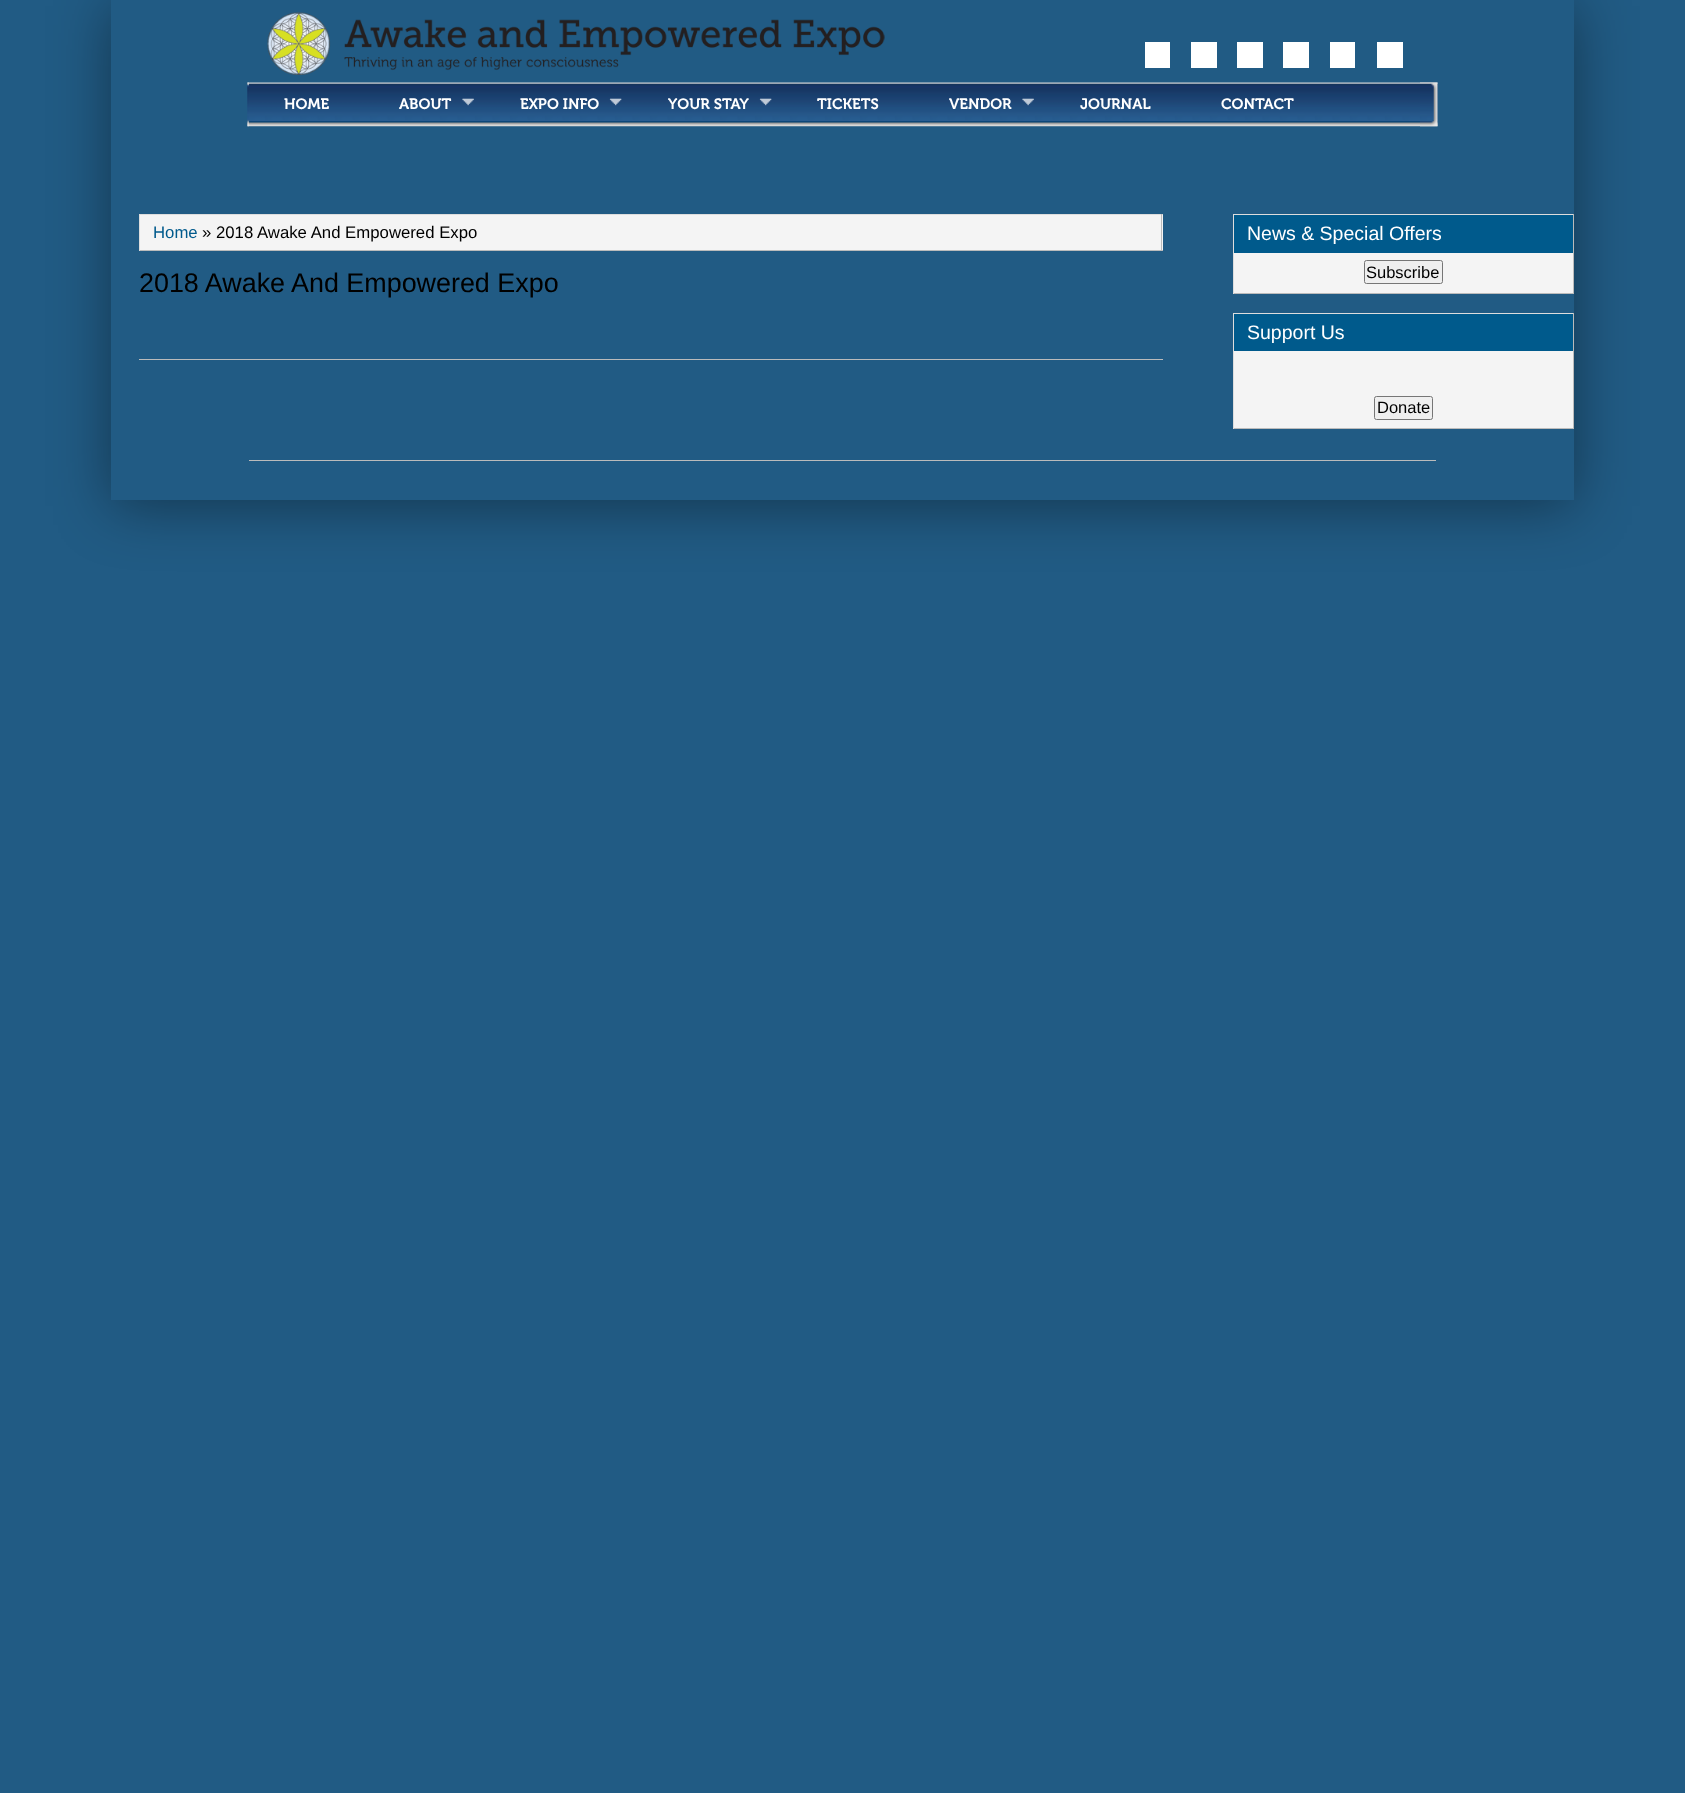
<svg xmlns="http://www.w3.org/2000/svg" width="1685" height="1793">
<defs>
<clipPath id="clip1"><path d="M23 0h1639v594h-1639zm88 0h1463v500h-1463z" clip-rule="evenodd"/></clipPath>
</defs>
<rect width="100%" height="100%" fill="#215b84"/>
<g clip-path="url(#clip1)">
<rect x="111" y="6" width="1463" height="500" fill="#00000066" filter="blur(29px)"/>
</g>
<image x="267" y="12" width="618" height="63" href="media/1.png"/>
<rect x="1145" y="42" width="25" height="26" fill="#fff"/>
<rect x="1191" y="42" width="26" height="26" fill="#fff"/>
<rect x="1237" y="42" width="26" height="26" fill="#fff"/>
<rect x="1283" y="42" width="26" height="26" fill="#fff"/>
<rect x="1330" y="42" width="25" height="26" fill="#fff"/>
<rect x="1377" y="42" width="26" height="26" fill="#fff"/>
<image x="247" y="82" width="1191" height="45" href="media/2.png"/>
<image x="247" y="82" width="2" height="45" href="media/3.png"/>
<text x="284" y="109" style="font-family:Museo;font-size:15px;fill:#fff">HOME</text>
<text x="399" y="109" style="font-family:Museo;font-size:15px;fill:#fff">ABOUT</text>
<image x="462" y="98" width="12" height="8" href="media/4.png"/>
<image x="462" y="98" width="12" height="8" href="media/5.png"/>
<text x="520" y="109" style="font-family:Museo;font-size:15px;fill:#fff">EXPO INFO</text>
<image x="609" y="98" width="13" height="8" href="media/6.png"/>
<image x="609" y="98" width="13" height="8" href="media/7.png"/>
<text x="668" y="109" style="font-family:Museo;font-size:15px;fill:#fff">YOUR STAY</text>
<image x="759" y="98" width="13" height="8" href="media/8.png"/>
<image x="759" y="98" width="13" height="8" href="media/9.png"/>
<text x="817" y="109" style="font-family:Museo;font-size:15px;fill:#fff">TICKETS</text>
<text x="949" y="109" style="font-family:Museo;font-size:15px;fill:#fff">VENDOR</text>
<image x="1022" y="98" width="12" height="8" href="media/10.png"/>
<image x="1022" y="98" width="12" height="8" href="media/11.png"/>
<text x="1080" y="109" style="font-family:Museo;font-size:15px;fill:#fff">JOURNAL</text>
<text x="1221" y="109" style="font-family:Museo;font-size:15px;fill:#fff">CONTACT</text>
<image x="1420" y="82" width="18" height="45" href="media/12.png"/>
<rect x="140" y="215" width="1023" height="35" fill="#f4f4f4"/>
<rect x="139" y="214" width="1024" height="1" fill="#ddd"/>
<rect x="1161" y="214" width="1" height="37" fill="#bbb"/>
<rect x="139" y="250" width="1024" height="1" fill="#bbb"/>
<rect x="139" y="214" width="1" height="37" fill="#ddd"/>
<text x="153" y="238" style="font-family:Liberation Sans;font-size:16.75px;fill:#005a8c">Home</text>
<text x="202" y="238" style="font-family:Liberation Sans;font-size:16.75px;fill:#000">» 2018 Awake And Empowered Expo</text>
<text x="139" y="292" style="font-family:Liberation Sans;font-size:26.9px;fill:#000">2018 Awake And Empowered Expo</text>
<rect x="139" y="359" width="1024" height="1" fill="#bbb"/>
<rect x="1234" y="253" width="339" height="40" fill="#f4f4f4"/>
<rect x="1233" y="214" width="341" height="1" fill="#ddd"/>
<rect x="1573" y="214" width="1" height="80" fill="#bbb"/>
<rect x="1233" y="293" width="341" height="1" fill="#bbb"/>
<rect x="1233" y="214" width="1" height="80" fill="#ddd"/>
<rect x="1234" y="215" width="339" height="38" fill="#005a8c"/>
<text x="1247" y="240" style="font-family:Liberation Sans;font-size:19.5px;fill:#fff">News &amp; Special Offers</text>
<rect x="1364.5" y="260.5" width="78" height="23" rx="2" fill="#efefef" stroke="#767676"/>
<text x="1366" y="278" style="font-family:Liberation Sans;font-size:16.5px;fill:#000">Subscribe</text>
<rect x="1234" y="351" width="339" height="77" fill="#f4f4f4"/>
<rect x="1233" y="313" width="341" height="1" fill="#ddd"/>
<rect x="1573" y="313" width="1" height="116" fill="#bbb"/>
<rect x="1233" y="428" width="341" height="1" fill="#bbb"/>
<rect x="1233" y="313" width="1" height="116" fill="#ddd"/>
<rect x="1234" y="314" width="339" height="37" fill="#005a8c"/>
<text x="1247" y="339" style="font-family:Liberation Sans;font-size:19.5px;fill:#fff">Support Us</text>
<rect x="1374.5" y="396.5" width="58" height="23" rx="2" fill="#efefef" stroke="#767676"/>
<text x="1377" y="413" style="font-family:Liberation Sans;font-size:16.5px;fill:#000">Donate</text>
<rect x="249" y="460" width="1187" height="1" fill="#bbb"/>
</svg>
